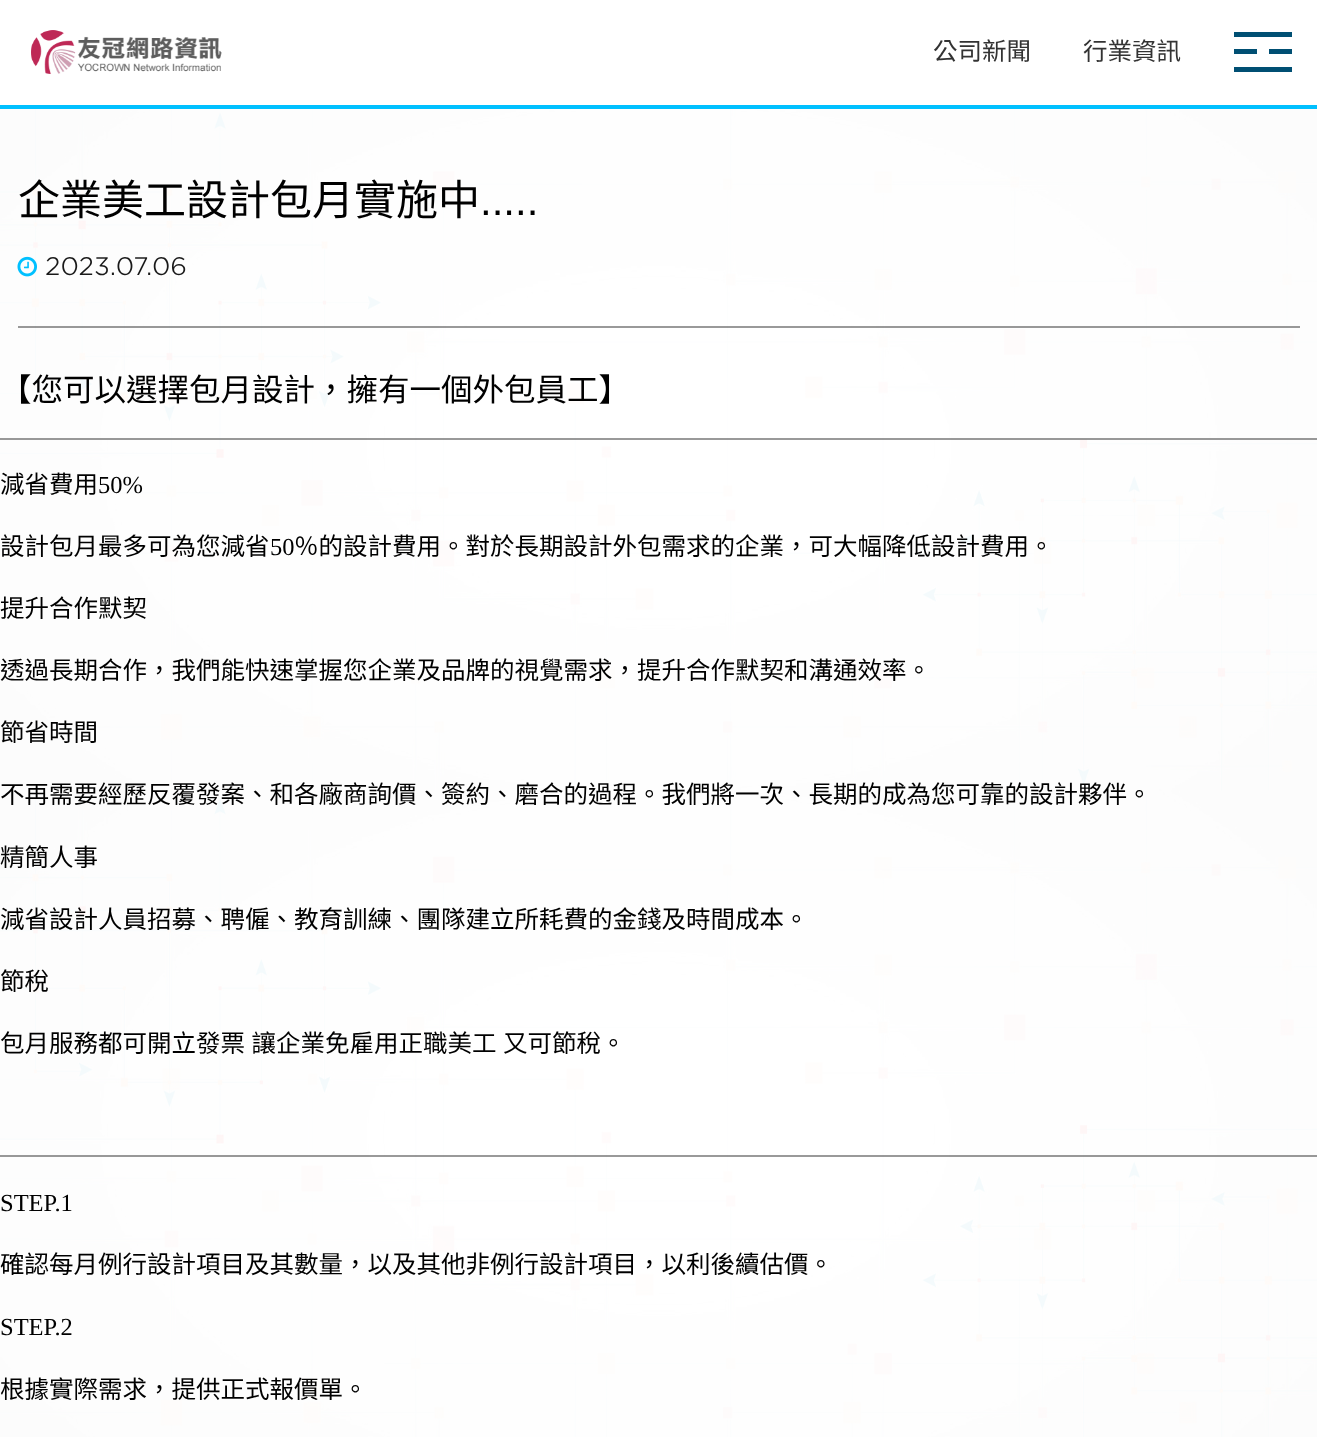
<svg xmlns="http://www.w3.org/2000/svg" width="1317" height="1437">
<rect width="100%" height="100%" fill="#fff"/>
<image x="31" y="30" width="191" height="44" href="media/1.png"/>
<text x="933" y="60" style="font-family:Noto Sans CJK TC;font-size:24.5px;fill:#333">公司新聞</text>
<text x="1083" y="60" style="font-family:Noto Sans CJK TC;font-size:24.5px;fill:#333">行業資訊</text>
<rect x="1234" y="32" width="58" height="5" fill="#004f73"/>
<rect x="1234" y="49" width="23" height="5" fill="#004f73"/>
<rect x="1269" y="49" width="23" height="5" fill="#004f73"/>
<rect x="1234" y="67" width="58" height="5" fill="#004f73"/>
<image x="0" y="109" width="1317" height="1328" href="media/2.png"/>
<rect y="105" width="1317" height="4" fill="#00c0ff"/>
<text x="18" y="215" style="font-family:Noto Sans CJK TC;font-size:42px;fill:#000">企業美工設計包月實施中</text>
<text x="480" y="215" style="font-family:Liberation Sans;font-size:42px;fill:#000">.....</text>
<rect x="18" y="326" width="1282" height="2" fill="#00000066"/>
<image x="17" y="256" width="20" height="21" href="media/3.png"/>
<text x="45" y="275" style="font-family:'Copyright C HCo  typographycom';font-size:24.5px;font-weight:300;fill:#191919">2023.07.06</text>
<text x="0" y="401" style="font-family:Noto Sans CJK TC;font-size:31.5px;fill:#000">【您可以選擇包月設計，擁有一個外包員工】</text>
<rect y="438" width="1317" height="2" fill="#00000066"/>
<text x="0" y="493" style="font-family:Noto Sans CJK TC;font-size:24.5px;fill:#000">減省費用</text>
<text x="98" y="493" style="font-family:Liberation Serif;font-size:24.5px;fill:#000">50%</text>
<text x="0" y="555" style="font-family:Noto Sans CJK TC;font-size:24.5px;fill:#000">設計包月最多可為您減省</text>
<text x="270" y="555" style="font-family:Liberation Serif;font-size:24.5px;fill:#000">50</text>
<text x="294" y="555" style="font-family:Noto Sans CJK TC;font-size:24.5px;fill:#000">％的設計費用。對於長期設計外包需求的企業，可大幅降低設計費用。</text>
<text x="0" y="617" style="font-family:Noto Sans CJK TC;font-size:24.5px;fill:#000">提升合作默契</text>
<text x="0" y="679" style="font-family:Noto Sans CJK TC;font-size:24.5px;fill:#000">透過長期合作，我們能快速掌握您企業及品牌的視覺需求，提升合作默契和溝通效率。</text>
<text x="0" y="741" style="font-family:Noto Sans CJK TC;font-size:24.5px;fill:#000">節省時間</text>
<text x="0" y="803" style="font-family:Noto Sans CJK TC;font-size:24.5px;fill:#000">不再需要經歷反覆發案、和各廠商詢價、簽約、磨合的過程。我們將一次、長期的成為您可靠的設計夥伴。</text>
<text x="0" y="866" style="font-family:Noto Sans CJK TC;font-size:24.5px;fill:#000">精簡人事</text>
<text x="0" y="928" style="font-family:Noto Sans CJK TC;font-size:24.5px;fill:#000">減省設計人員招募、聘僱、教育訓練、團隊建立所耗費的金錢及時間成本。</text>
<text x="0" y="990" style="font-family:Noto Sans CJK TC;font-size:24.5px;fill:#000">節稅</text>
<text x="0" y="1052" word-spacing="1" style="font-family:Noto Sans CJK TC;font-size:24.5px;fill:#000">包月服務都可開立發票 讓企業免雇用正職美工 又可節稅。</text>
<rect y="1155" width="1317" height="2" fill="#00000066"/>
<text x="0" y="1211" style="font-family:Liberation Serif;font-size:24.5px;fill:#000">STEP.1</text>
<text x="0" y="1273" style="font-family:Noto Sans CJK TC;font-size:24.5px;fill:#000">確認每月例行設計項目及其數量，以及其他非例行設計項目，以利後續估價。</text>
<text x="0" y="1335" style="font-family:Liberation Serif;font-size:24.5px;fill:#000">STEP.2</text>
<text x="0" y="1398" style="font-family:Noto Sans CJK TC;font-size:24.5px;fill:#000">根據實際需求，提供正式報價單。</text>
</svg>
